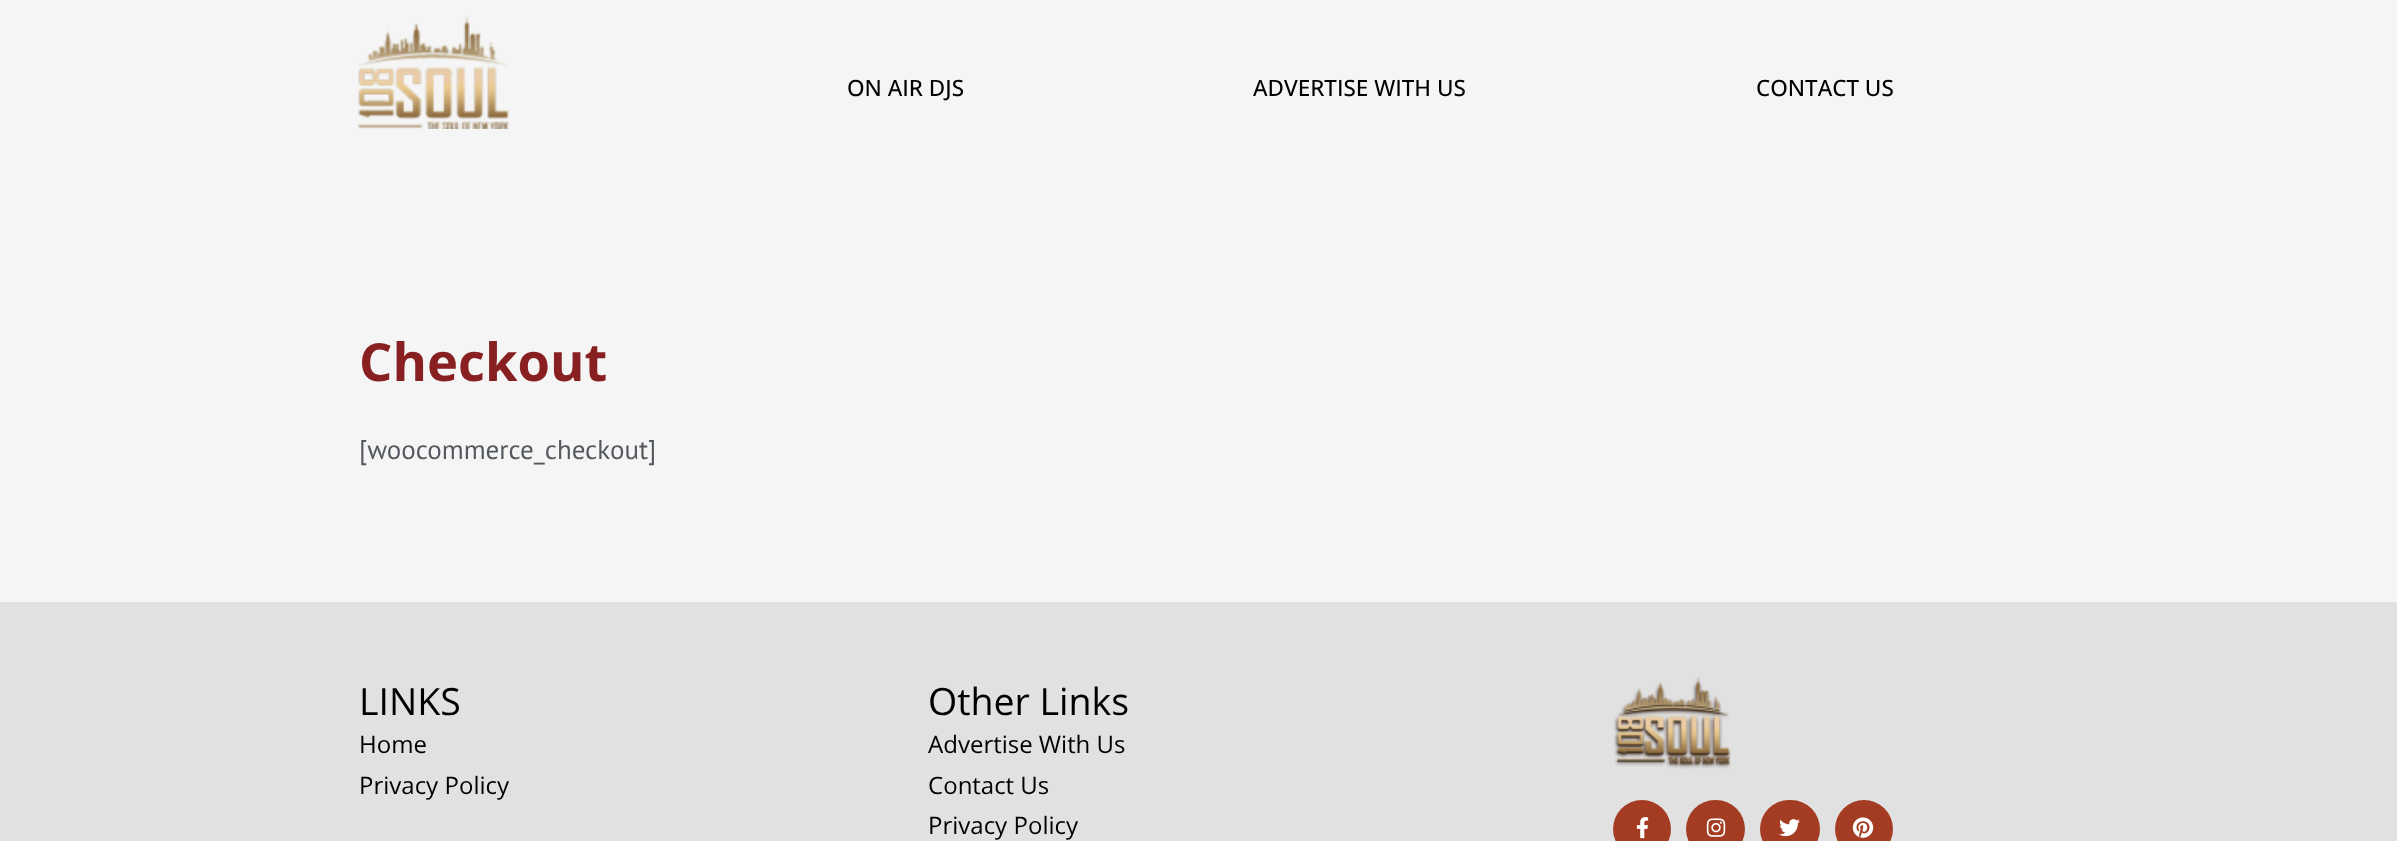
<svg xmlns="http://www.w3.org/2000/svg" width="2397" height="841">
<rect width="100%" height="100%" fill="#f5f5f5"/>
<image x="358" y="15" width="151" height="114" href="media/1.png"/>
<text x="847" y="96" style="font-family:Open Sans;font-size:22.5px;font-weight:500;fill:#000">ON AIR DJS</text>
<text x="1253" y="96" style="font-family:Open Sans;font-size:22.5px;font-weight:500;fill:#000">ADVERTISE WITH US</text>
<text x="1756" y="96" style="font-family:Open Sans;font-size:22.5px;font-weight:500;fill:#000">CONTACT US</text>
<text x="359" y="381" style="font-family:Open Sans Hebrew;font-size:52.5px;font-weight:bold;fill:#882021">Checkout</text>
<text x="359" y="459" style="font-family:PT Sans;font-size:27px;fill:#54595f">[woocommerce_checkout]</text>
<rect y="602" width="2397" height="239" fill="#e1e1e1"/>
<text x="359" y="715" style="font-family:Open Sans Hebrew;font-size:37.5px;fill:#000">LINKS</text>
<text x="359" y="753" style="font-family:Open Sans Hebrew;font-size:24px;fill:#000">Home</text>
<text x="359" y="794" style="font-family:Open Sans Hebrew;font-size:24px;fill:#000">Privacy Policy</text>
<text x="928" y="715" style="font-family:Open Sans Hebrew;font-size:37.5px;fill:#000">Other Links</text>
<text x="928" y="753" style="font-family:Open Sans Hebrew;font-size:24px;fill:#000">Advertise With Us</text>
<text x="928" y="794" style="font-family:Open Sans Hebrew;font-size:24px;fill:#000">Contact Us</text>
<text x="928" y="834" style="font-family:Open Sans Hebrew;font-size:24px;fill:#000">Privacy Policy</text>
<image x="1614" y="676" width="117" height="93" href="media/2.png"/>
<circle cx="1642" cy="829" r="29" fill="#a43c23"/>
<image x="1636" y="817" width="13" height="22" href="media/3.png"/>
<rect x="1686" y="800" width="59" height="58" rx="29" fill="#a43c23"/>
<image x="1706" y="818" width="20" height="19" href="media/4.png"/>
<rect x="1760" y="800" width="60" height="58" rx="29" fill="#a43c23"/>
<image x="1779" y="819" width="21" height="18" href="media/5.png"/>
<circle cx="1864" cy="829" r="29" fill="#a43c23"/>
<image x="1852" y="817" width="22" height="21" href="media/6.png"/>
</svg>
